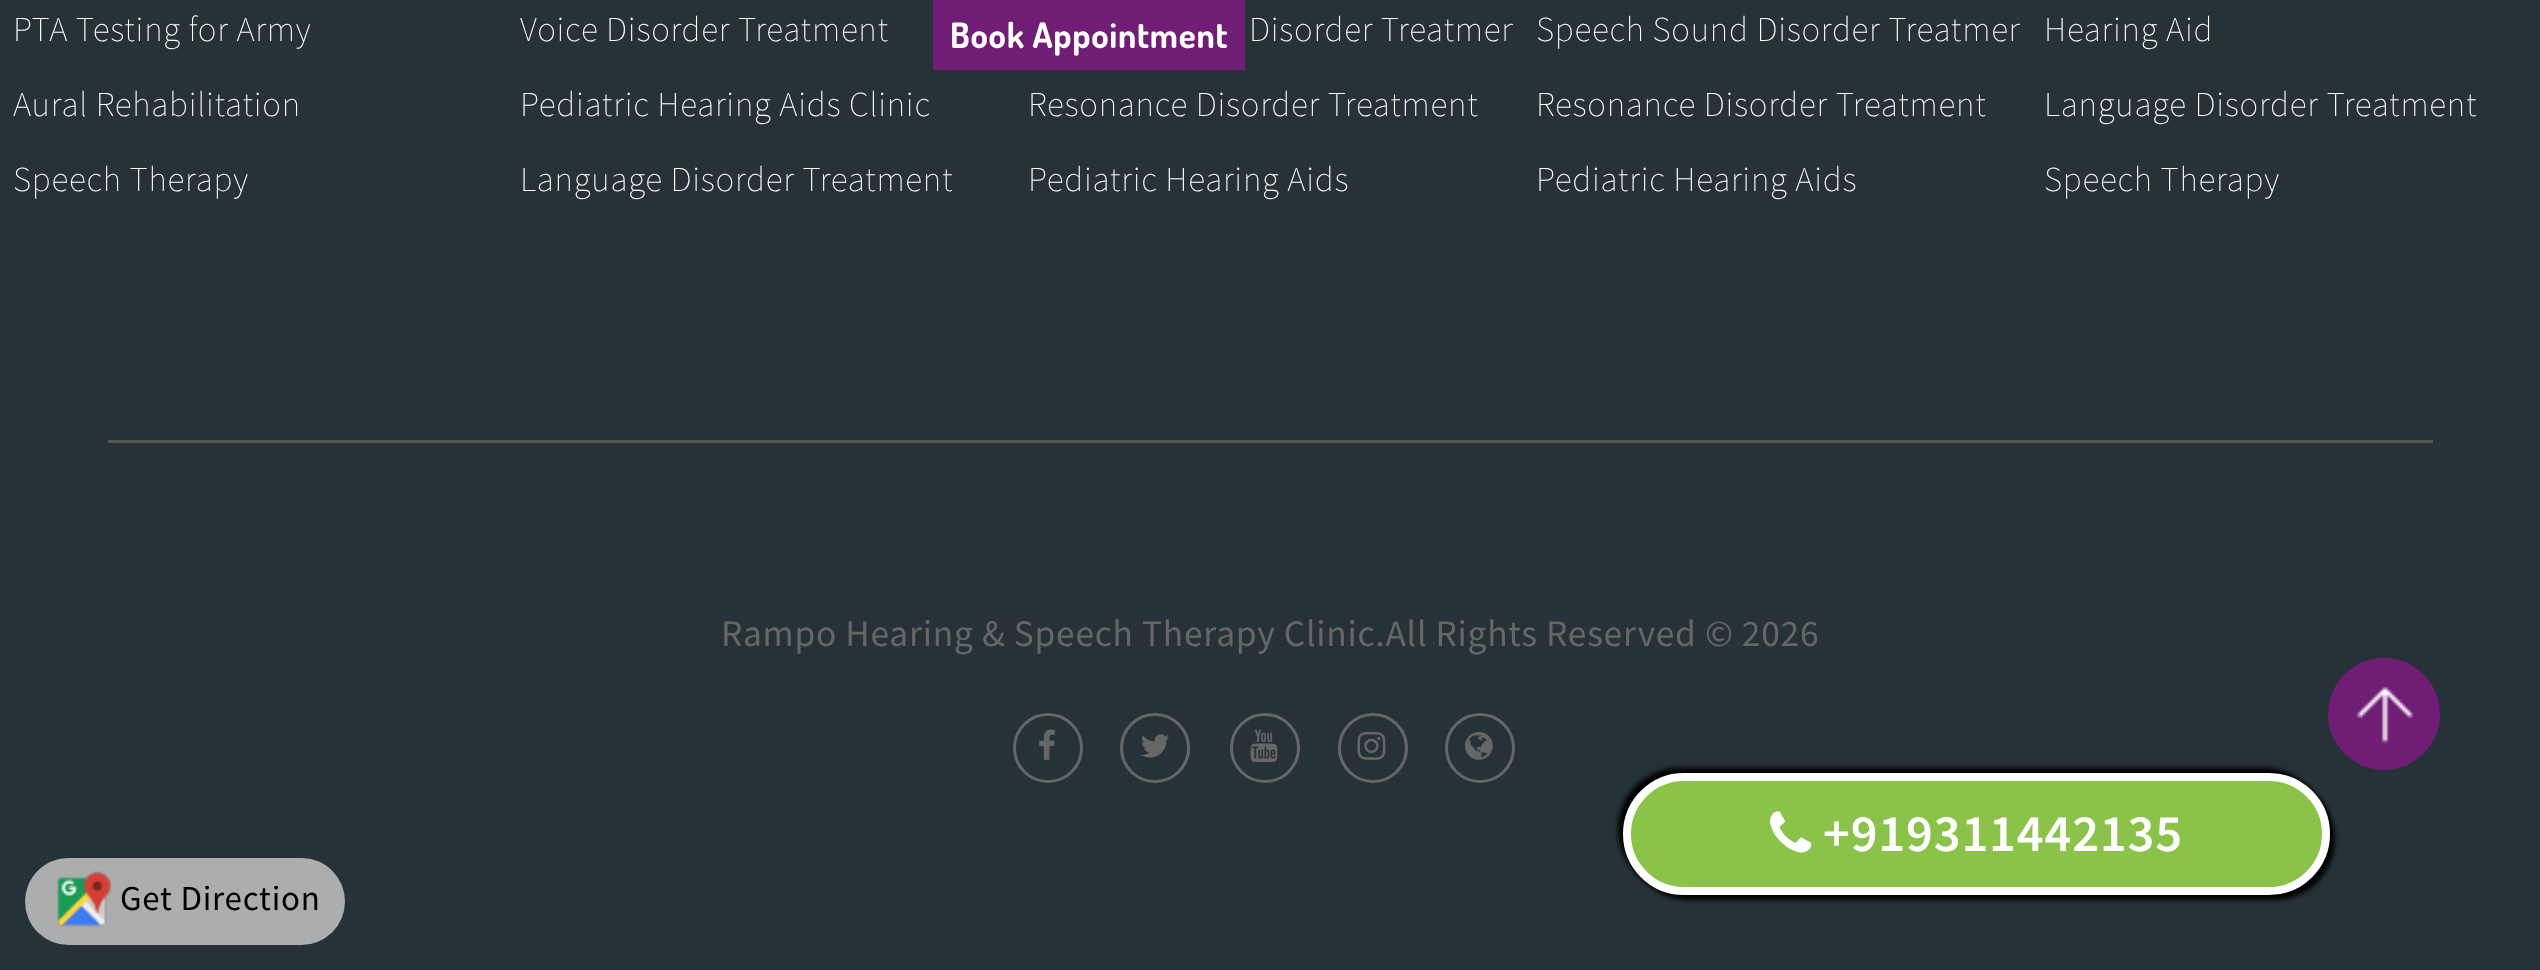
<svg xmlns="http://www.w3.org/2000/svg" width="2540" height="970">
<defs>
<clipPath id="clip1"><rect x="1028" width="485" height="65"/></clipPath>
<clipPath id="clip2"><rect x="1538" width="482" height="65"/></clipPath>
</defs>
<rect width="100%" height="100%" fill="#263238"/>
<text x="13" y="41" style="font-family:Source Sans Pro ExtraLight;font-size:35px;font-weight:200;letter-spacing:0.75px;fill:#fff">PTA Testing for Army</text>
<text x="13" y="116" style="font-family:Source Sans Pro ExtraLight;font-size:35px;font-weight:200;letter-spacing:0.75px;fill:#fff">Aural Rehabilitation</text>
<text x="13" y="191" style="font-family:Source Sans Pro ExtraLight;font-size:35px;font-weight:200;letter-spacing:0.75px;fill:#fff">Speech Therapy</text>
<text x="520" y="41" style="font-family:Source Sans Pro ExtraLight;font-size:35px;font-weight:200;letter-spacing:0.75px;fill:#fff">Voice Disorder Treatment</text>
<text x="520" y="116" style="font-family:Source Sans Pro ExtraLight;font-size:35px;font-weight:200;letter-spacing:0.75px;fill:#fff">Pediatric Hearing Aids Clinic</text>
<text x="520" y="191" style="font-family:Source Sans Pro ExtraLight;font-size:35px;font-weight:200;letter-spacing:0.75px;fill:#fff">Language Disorder Treatment</text>
<g clip-path="url(#clip1)">
<text x="1249" y="41" style="font-family:Source Sans Pro ExtraLight;font-size:35px;font-weight:200;letter-spacing:0.75px;fill:#fff">Disorder Treatmen</text>
</g>
<text x="1028" y="116" style="font-family:Source Sans Pro ExtraLight;font-size:35px;font-weight:200;letter-spacing:0.75px;fill:#fff">Resonance Disorder Treatment</text>
<text x="1028" y="191" style="font-family:Source Sans Pro ExtraLight;font-size:35px;font-weight:200;letter-spacing:0.75px;fill:#fff">Pediatric Hearing Aids</text>
<g clip-path="url(#clip2)">
<text x="1536" y="41" style="font-family:Source Sans Pro ExtraLight;font-size:35px;font-weight:200;letter-spacing:0.75px;fill:#fff">Speech Sound Disorder Treatmen</text>
</g>
<text x="1536" y="116" style="font-family:Source Sans Pro ExtraLight;font-size:35px;font-weight:200;letter-spacing:0.75px;fill:#fff">Resonance Disorder Treatment</text>
<text x="1536" y="191" style="font-family:Source Sans Pro ExtraLight;font-size:35px;font-weight:200;letter-spacing:0.75px;fill:#fff">Pediatric Hearing Aids</text>
<text x="2044" y="41" style="font-family:Source Sans Pro ExtraLight;font-size:35px;font-weight:200;letter-spacing:0.75px;fill:#fff">Hearing Aid</text>
<text x="2044" y="116" style="font-family:Source Sans Pro ExtraLight;font-size:35px;font-weight:200;letter-spacing:0.75px;fill:#fff">Language Disorder Treatment</text>
<text x="2044" y="191" style="font-family:Source Sans Pro ExtraLight;font-size:35px;font-weight:200;letter-spacing:0.75px;fill:#fff">Speech Therapy</text>
<rect x="108" y="440" width="2325" height="3" fill="#555"/>
<text x="721" y="646" style="font-family:Source Sans Pro;font-size:37.5px;letter-spacing:0.75px;fill:#666">Rampo Hearing &amp; Speech Therapy Clinic.All Rights Reserved © 2026</text>
<circle cx="1048" cy="748" r="33.5" fill="none" stroke="#666" stroke-width="3"/>
<image x="1039" y="729" width="16" height="31" href="media/1.png"/>
<circle cx="1155" cy="748" r="33.5" fill="none" stroke="#666" stroke-width="3"/>
<image x="1141" y="734" width="29" height="24" href="media/2.png"/>
<circle cx="1265" cy="748" r="33.5" fill="none" stroke="#666" stroke-width="3"/>
<image x="1250" y="729" width="28" height="34" href="media/3.png"/>
<circle cx="1373" cy="748" r="33.5" fill="none" stroke="#666" stroke-width="3"/>
<image x="1357" y="732" width="29" height="28" href="media/4.png"/>
<circle cx="1480" cy="748" r="33.5" fill="none" stroke="#666" stroke-width="3"/>
<image x="1465" y="732" width="28" height="28" href="media/5.png"/>
<circle cx="2384" cy="714" r="56" fill="#701d75"/>
<image x="2356" y="686" width="58" height="58" href="media/6.png"/>
<rect x="933" width="312" height="70" fill="#701d75"/>
<text x="950" y="48" style="font-family:Dosis;font-size:35px;font-weight:bold;letter-spacing:0.75px;fill:#fff">Book Appointment</text>
<rect x="1618" y="768" width="707" height="122" rx="61" fill="#000" filter="blur(2.5px)"/>
<rect x="1628" y="778" width="707" height="122" rx="61" fill="#000" filter="blur(2.5px)"/>
<rect x="1627" y="777" width="699" height="114" rx="57" fill="#8bc34a" stroke="#fff" stroke-width="8"/>
<image x="1770" y="811" width="42" height="42" href="media/7.png"/>
<text x="1823" y="851" style="font-family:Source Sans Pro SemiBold;font-size:52.5px;font-weight:600;letter-spacing:0.75px;fill:#fff">+919311442135</text>
<rect x="25" y="858" width="320" height="87" rx="43.5" fill="#abadae"/>
<image x="57" y="871" width="55" height="56" href="media/8.png"/>
<text x="120" y="910" style="font-family:Source Sans Pro;font-size:35px;letter-spacing:0.75px;fill:#000">Get Direction</text>
</svg>
